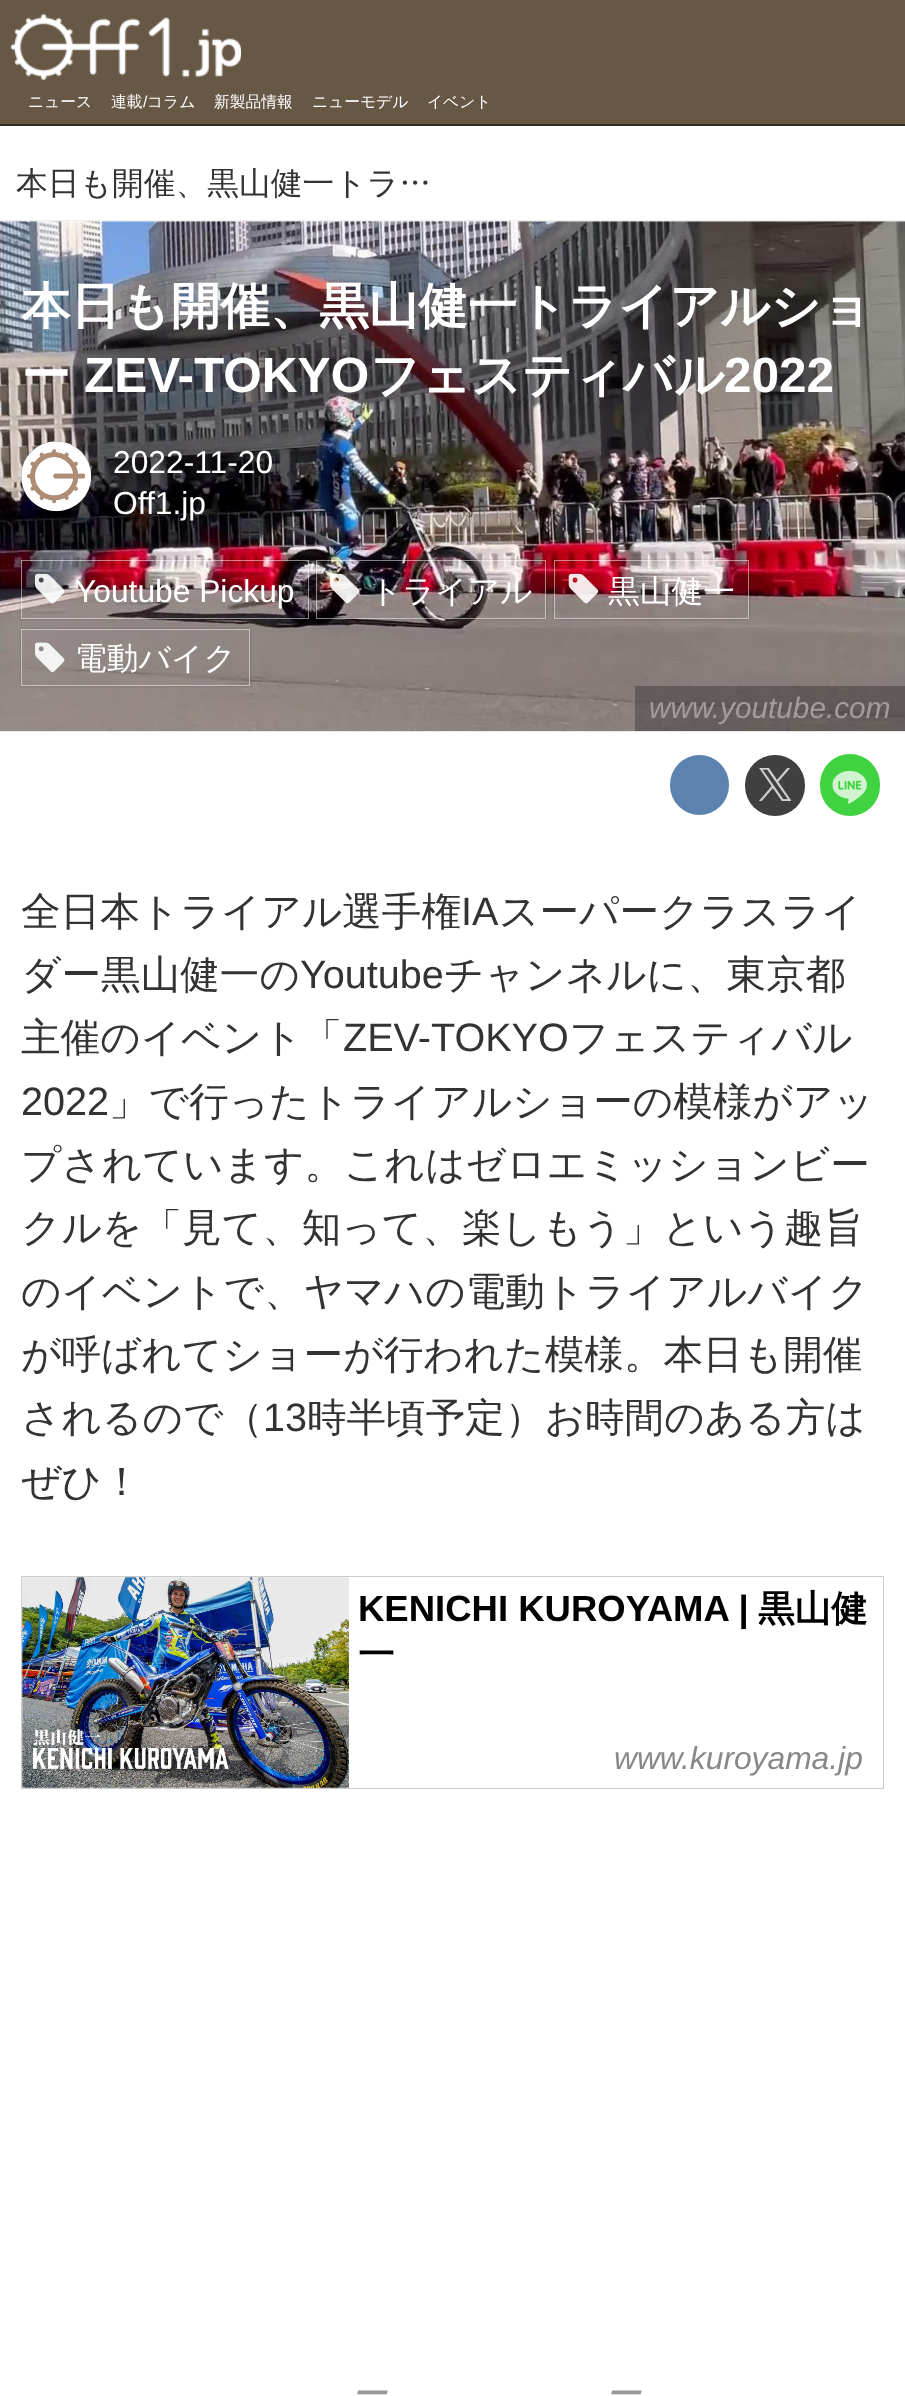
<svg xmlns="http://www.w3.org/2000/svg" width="905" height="2396">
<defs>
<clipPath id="clip1"><path d="M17 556h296v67h-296zm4 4h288v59h-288z" clip-rule="evenodd"/></clipPath>
<clipPath id="clip2"><path d="M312 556h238v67h-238zm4 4h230v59h-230z" clip-rule="evenodd"/></clipPath>
<clipPath id="clip3"><path d="M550 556h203v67h-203zm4 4h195v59h-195z" clip-rule="evenodd"/></clipPath>
<clipPath id="clip4"><path d="M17 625h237v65h-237zm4 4h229v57h-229z" clip-rule="evenodd"/></clipPath>
</defs>
<rect width="100%" height="100%" fill="#fff"/>
<rect width="905" height="124" fill="#675846"/>
<rect y="124" width="905" height="2" fill="#302c27"/>
<image x="10" y="13" width="231" height="67" href="media/1.png"/>
<text x="28" y="107" style="font-family:WenQuanYi Zen Hei;font-size:15.75px;font-weight:500;fill:#fff">ニュース</text>
<text x="111" y="107" style="font-family:WenQuanYi Zen Hei;font-size:15.75px;font-weight:500;fill:#fff">連載</text>
<text x="143" y="107" style="font-family:Liberation Sans;font-size:15.75px;fill:#fff">/</text>
<text x="147" y="107" style="font-family:WenQuanYi Zen Hei;font-size:15.75px;font-weight:500;fill:#fff">コラム</text>
<text x="214" y="107" style="font-family:WenQuanYi Zen Hei;font-size:15.75px;font-weight:500;fill:#fff">新製品情報</text>
<text x="312" y="107" style="font-family:WenQuanYi Zen Hei;font-size:15.75px;font-weight:500;fill:#fff">ニューモデル</text>
<text x="427" y="107" style="font-family:WenQuanYi Zen Hei;font-size:15.75px;font-weight:500;fill:#fff">イベント</text>
<text x="16" y="194" style="font-family:WenQuanYi Zen Hei;font-size:31.75px;font-weight:500;fill:#333">本日も開催、黒山健一トラ…</text>
<rect y="220" width="905" height="1" fill="#eee"/>
<rect y="731" width="905" height="1" fill="#eee"/>
<image x="0" y="221" width="905" height="511" href="media/7.png"/>
<text x="21" y="323" style="font-family:WenQuanYi Zen Hei;font-size:49.5px;font-weight:bold;fill:#fff">本日も開催、黒山健一トライアルショ</text>
<text x="21" y="392" style="font-family:WenQuanYi Zen Hei;font-size:49.5px;font-weight:bold;fill:#fff">ー</text>
<text x="84" y="392" style="font-family:Liberation Sans;font-size:49.5px;font-weight:bold;fill:#fff">ZEV-TOKYO</text>
<text x="370" y="392" style="font-family:WenQuanYi Zen Hei;font-size:49.5px;font-weight:bold;fill:#fff">フェスティバル</text>
<text x="724" y="392" style="font-family:Liberation Sans;font-size:49.5px;font-weight:bold;fill:#fff">2022</text>
<circle cx="56" cy="476" r="35" fill="#888"/>
<image x="21" y="441" width="71" height="71" href="media/2.png"/>
<text x="113" y="473" style="font-family:Liberation Sans;font-size:31.75px;fill:#fff">2022-11-20</text>
<text x="113" y="514" style="font-family:Liberation Sans;font-size:31.75px;fill:#fff">Off1.jp</text>
<g clip-path="url(#clip1)">
<rect x="21" y="560" width="288" height="59" fill="#00000040" filter="blur(1px)"/>
</g>
<rect x="21.5" y="560.5" width="287" height="58" fill="none" stroke="#ffffff80"/>
<image x="35" y="573" width="30" height="31" href="media/3.png"/>
<text x="75" y="602" style="font-family:Liberation Sans;font-size:31.75px;fill:#fff">Youtube Pickup</text>
<g clip-path="url(#clip2)">
<rect x="316" y="560" width="230" height="59" fill="#00000040" filter="blur(1px)"/>
</g>
<rect x="316.5" y="560.5" width="229" height="58" fill="none" stroke="#ffffff80"/>
<image x="330" y="573" width="30" height="31" href="media/4.png"/>
<text x="370" y="602" style="font-family:WenQuanYi Zen Hei;font-size:31.75px;font-weight:500;fill:#fff">トライアル</text>
<g clip-path="url(#clip3)">
<rect x="554" y="560" width="195" height="59" fill="#00000040" filter="blur(1px)"/>
</g>
<rect x="554.5" y="560.5" width="194" height="58" fill="none" stroke="#ffffff80"/>
<image x="568" y="573" width="31" height="31" href="media/5.png"/>
<text x="608" y="602" style="font-family:WenQuanYi Zen Hei;font-size:31.75px;font-weight:500;fill:#fff">黒山健一</text>
<g clip-path="url(#clip4)">
<rect x="21" y="629" width="229" height="57" fill="#00000040" filter="blur(1px)"/>
</g>
<rect x="21.5" y="629.5" width="228" height="56" fill="none" stroke="#ffffff80"/>
<image x="35" y="642" width="30" height="30" href="media/6.png"/>
<text x="75" y="669" style="font-family:WenQuanYi Zen Hei;font-size:31.75px;font-weight:500;fill:#fff">電動バイク</text>
<rect x="635" y="686" width="270" height="45" fill="#00000040"/>
<text x="649" y="718" style="font-family:Liberation Sans;font-size:29.75px;font-style:italic;fill:#a29d9c">www.youtube.com</text>
<rect x="670" y="755" width="59" height="60" rx="29.5" fill="#5c83b0"/>
<rect x="745" y="755" width="60" height="61" rx="30" fill="#404040"/>
<image x="759" y="768" width="32" height="33" href="media/8.png"/>
<rect x="820" y="754" width="60" height="62" rx="30" fill="#40d240"/>
<image x="832" y="770" width="35" height="34" href="media/9.png"/>
<text x="21" y="925" style="font-family:WenQuanYi Zen Hei;font-size:39.6px;font-weight:500;fill:#333">全日本トライアル選手権</text>
<text x="461" y="925" style="font-family:Liberation Sans;font-size:39.6px;fill:#333">IA</text>
<text x="499" y="925" style="font-family:WenQuanYi Zen Hei;font-size:39.6px;font-weight:500;fill:#333">スーパークラスライ</text>
<text x="21" y="988" style="font-family:WenQuanYi Zen Hei;font-size:39.6px;font-weight:500;fill:#333">ダー黒山健一の</text>
<text x="300" y="988" style="font-family:Liberation Sans;font-size:39.6px;fill:#333">Youtube</text>
<text x="444" y="988" style="font-family:WenQuanYi Zen Hei;font-size:39.6px;font-weight:500;fill:#333">チャンネルに、東京都</text>
<text x="21" y="1051" style="font-family:WenQuanYi Zen Hei;font-size:39.6px;font-weight:500;fill:#333">主催のイベント「</text>
<text x="343" y="1051" style="font-family:Liberation Sans;font-size:39.6px;fill:#333">ZEV-TOKYO</text>
<text x="569" y="1051" style="font-family:WenQuanYi Zen Hei;font-size:39.6px;font-weight:500;fill:#333">フェスティバル</text>
<text x="21" y="1115" style="font-family:Liberation Sans;font-size:39.6px;fill:#333">2022</text>
<text x="109" y="1115" style="font-family:WenQuanYi Zen Hei;font-size:39.6px;font-weight:500;fill:#333">」で行ったトライアルショーの模様がアッ</text>
<text x="21" y="1178" style="font-family:WenQuanYi Zen Hei;font-size:39.6px;font-weight:500;fill:#333">プされています。これはゼロエミッションビー</text>
<text x="21" y="1241" style="font-family:WenQuanYi Zen Hei;font-size:39.6px;font-weight:500;fill:#333">クルを「見て、知って、楽しもう」という趣旨</text>
<text x="21" y="1305" style="font-family:WenQuanYi Zen Hei;font-size:39.6px;font-weight:500;fill:#333">のイベントで、ヤマハの電動トライアルバイク</text>
<text x="21" y="1368" style="font-family:WenQuanYi Zen Hei;font-size:39.6px;font-weight:500;fill:#333">が呼ばれてショーが行われた模様。本日も開催</text>
<text x="21" y="1431" style="font-family:WenQuanYi Zen Hei;font-size:39.6px;font-weight:500;fill:#333">されるので（</text>
<text x="263" y="1431" style="font-family:Liberation Sans;font-size:39.6px;fill:#333">13</text>
<text x="307" y="1431" style="font-family:WenQuanYi Zen Hei;font-size:39.6px;font-weight:500;fill:#333">時半頃予定）お時間のある方は</text>
<text x="21" y="1495" style="font-family:WenQuanYi Zen Hei;font-size:39.6px;font-weight:500;fill:#333">ぜひ！</text>
<rect x="21.5" y="1576.5" width="862" height="212" fill="none" stroke="#ccc"/>
<image x="22" y="1577" width="327" height="211" href="media/10.png"/>
<image x="22" y="1577" width="327" height="211" href="media/11.png"/>
<text x="358" y="1621" style="font-family:Liberation Sans;font-size:36.5px;font-weight:bold;fill:#000">KENICHI KUROYAMA |</text>
<text x="758" y="1621" style="font-family:WenQuanYi Zen Hei;font-size:36.5px;font-weight:bold;fill:#000">黒山健</text>
<text x="358" y="1667" style="font-family:WenQuanYi Zen Hei;font-size:36.5px;font-weight:bold;fill:#000">一</text>
<text x="614" y="1769" style="font-family:Liberation Sans;font-size:31.75px;font-style:italic;fill:#888">www.kuroyama.jp</text>
<text x="351" y="2406" style="font-family:WenQuanYi Zen Hei;font-size:36px;font-weight:500;font-style:italic;fill:#999">ー</text>
<text x="605" y="2406" style="font-family:WenQuanYi Zen Hei;font-size:36px;font-weight:500;font-style:italic;fill:#999">ー</text>
</svg>
